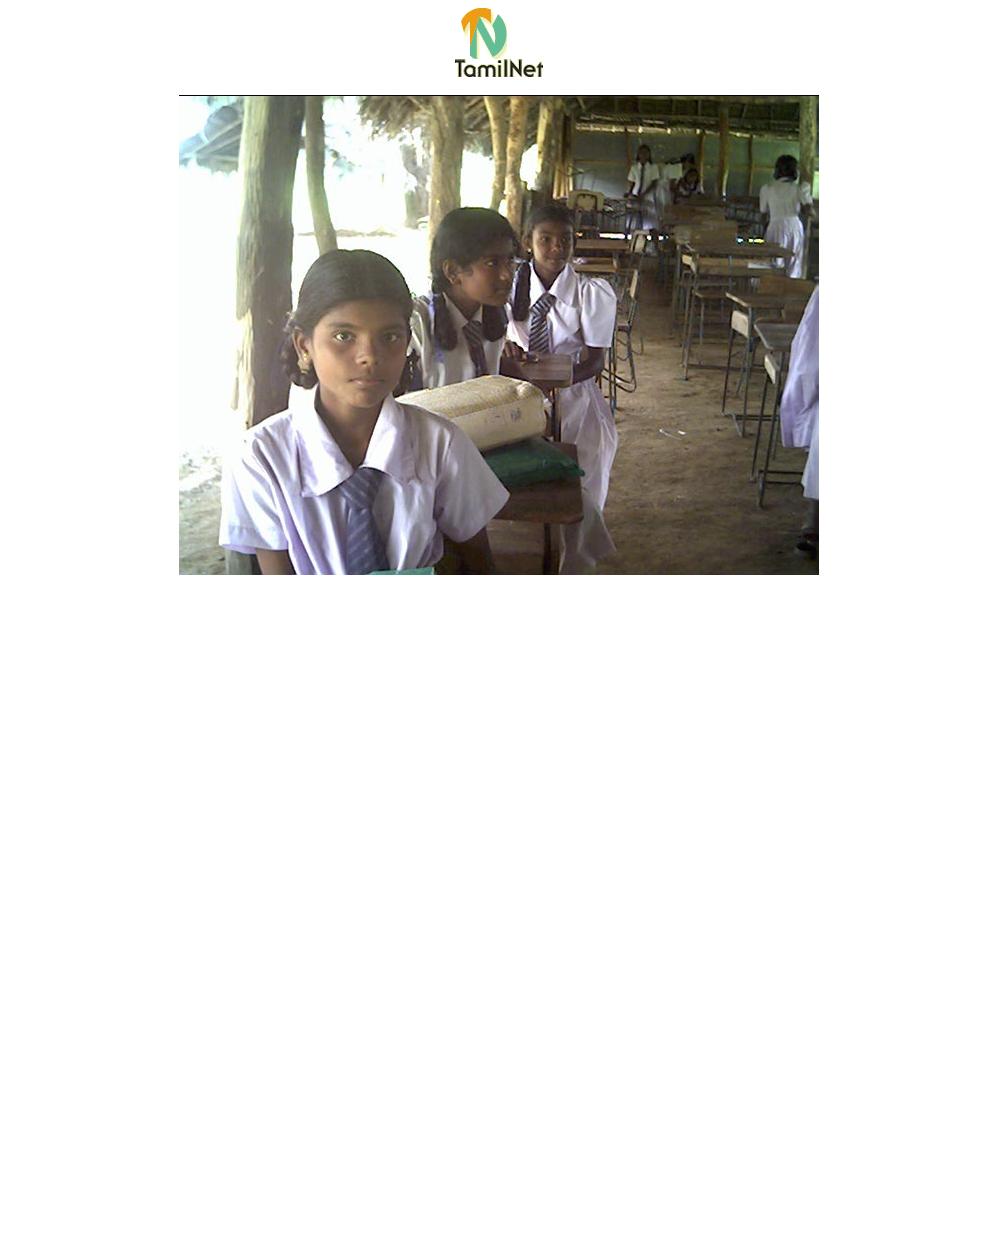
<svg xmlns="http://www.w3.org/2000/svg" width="997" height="1259">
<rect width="100%" height="100%" fill="#fff"/>
<image x="455" y="8" width="88" height="69" href="media/1.png"/>
<image x="179" y="95" width="640" height="480" href="media/2.png"/>
</svg>
